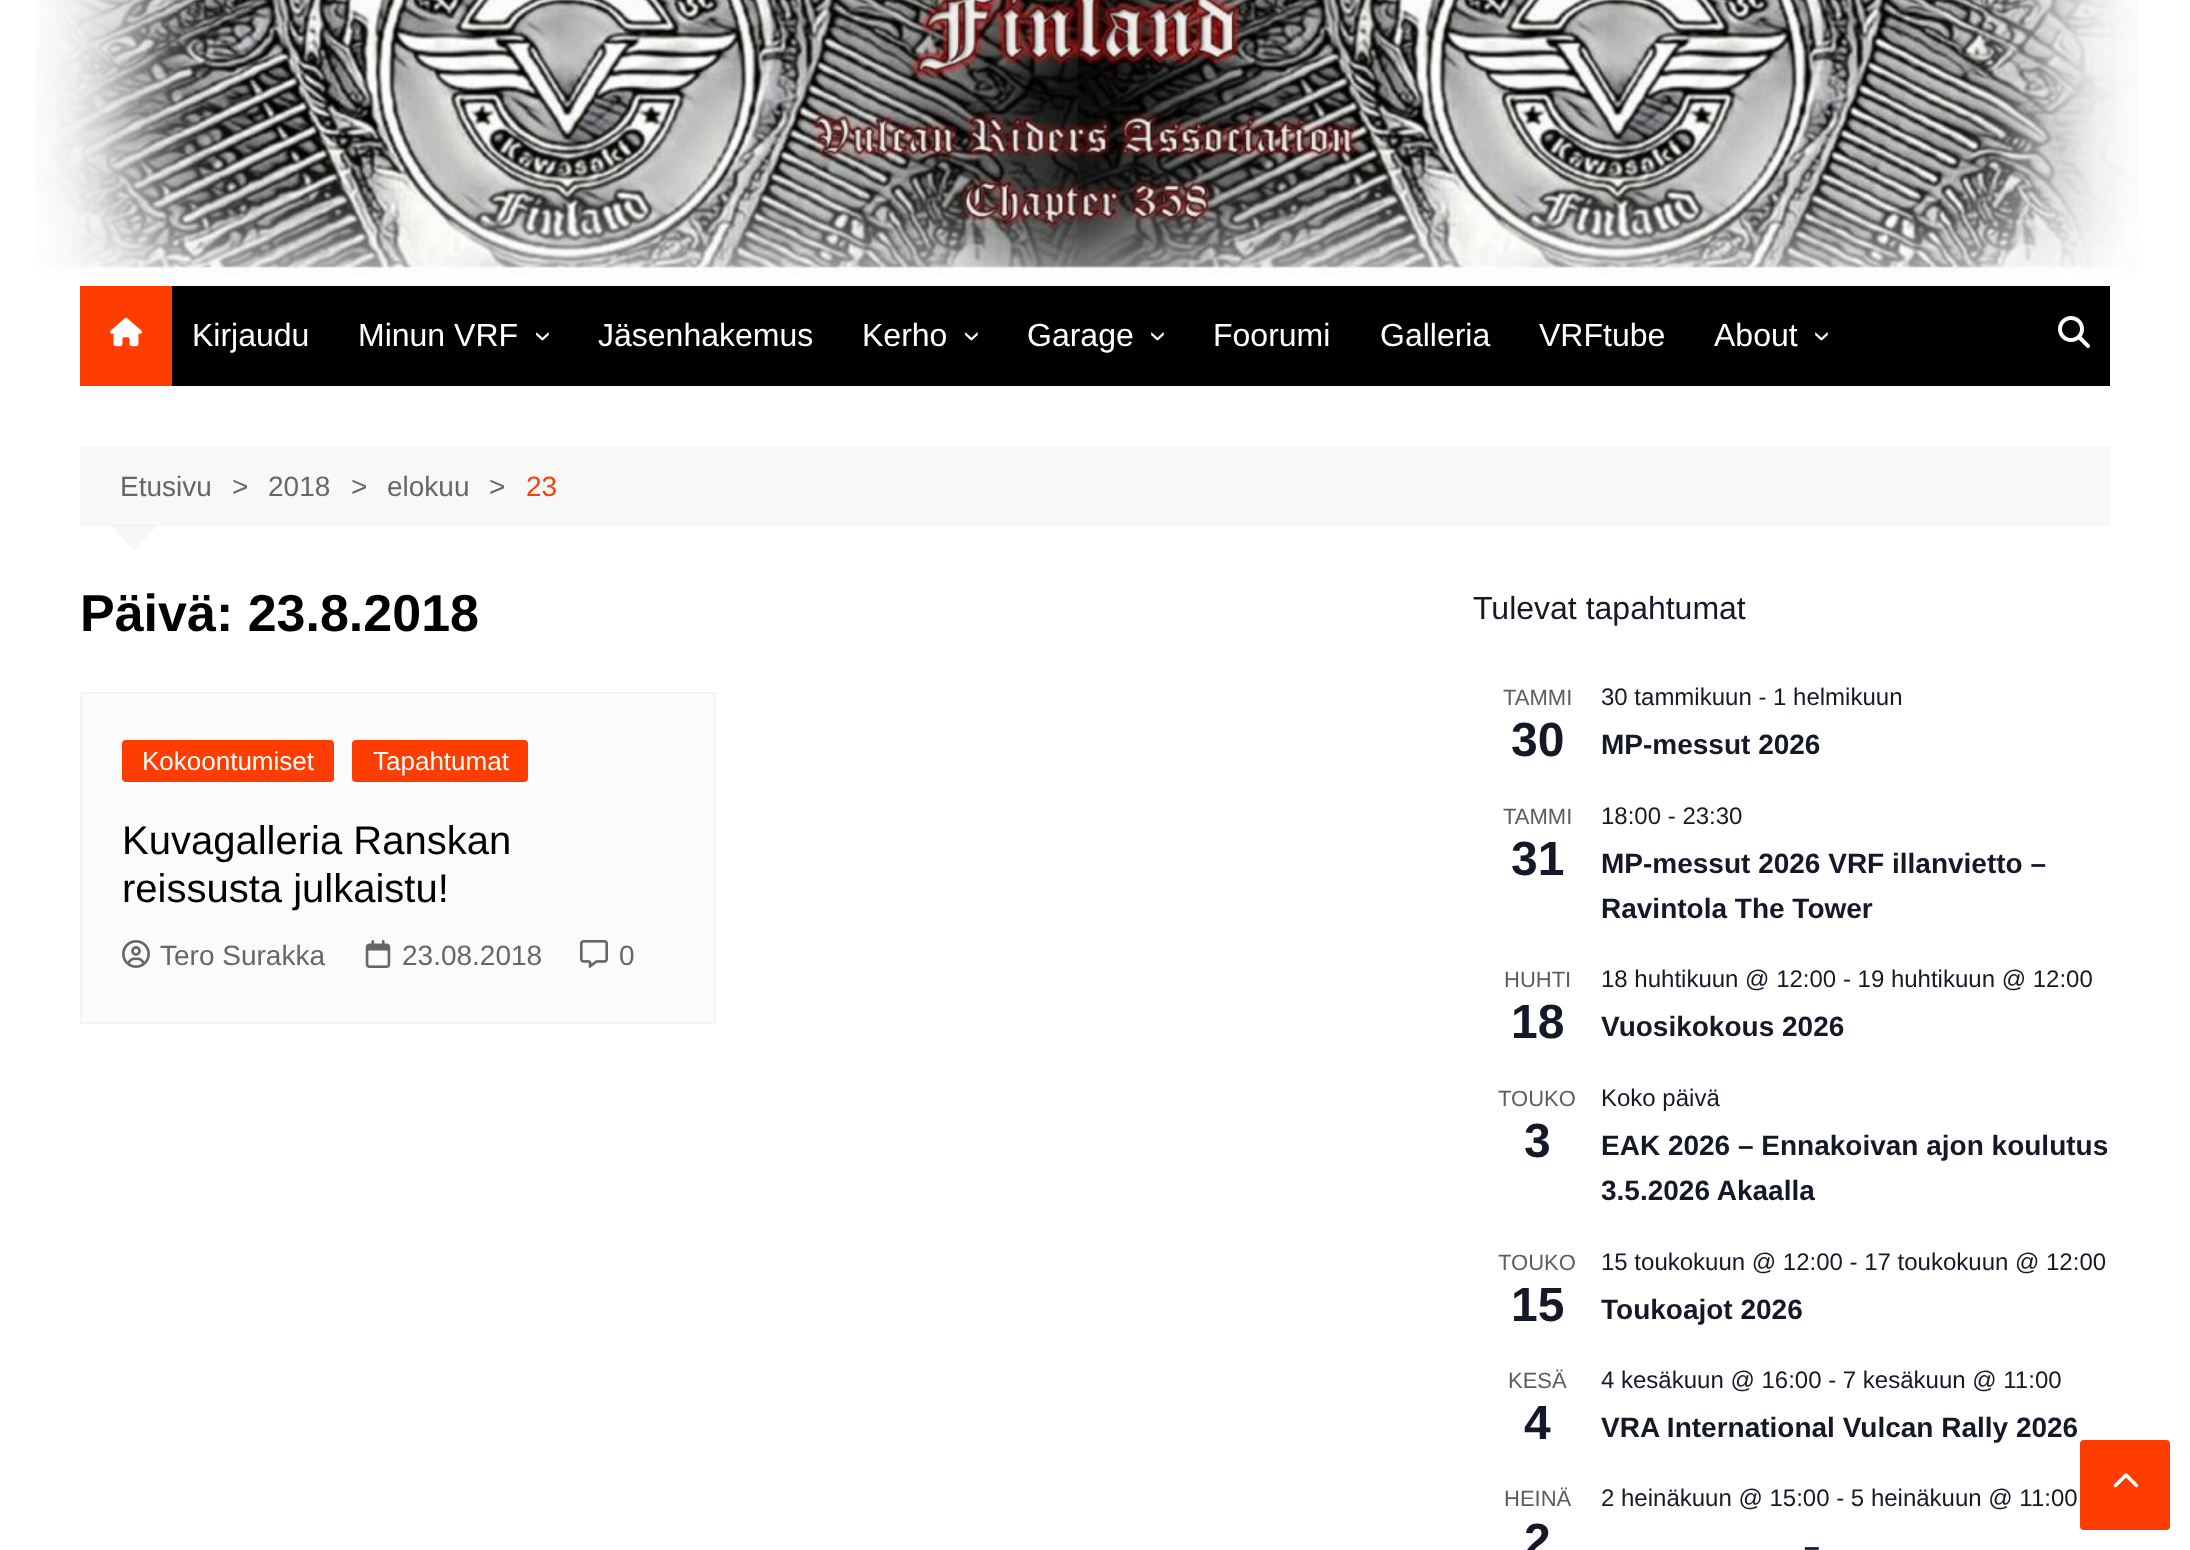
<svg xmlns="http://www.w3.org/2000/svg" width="2190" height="1550">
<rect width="100%" height="100%" fill="#fff"/>
<image x="36" y="0" width="2102" height="277" href="media/1.png"/>
<rect x="172" y="286" width="1938" height="100" fill="#000"/>
<rect x="80" y="286" width="92" height="100" fill="#ff3d00"/>
<image x="110" y="317" width="32" height="30" href="media/2.png"/>
<text x="192" y="346" style="font-family:Liberation Sans;font-size:32px;fill:#fff">Kirjaudu</text>
<text x="358" y="346" style="font-family:Liberation Sans;font-size:32px;fill:#fff">Minun VRF</text>
<text x="534" y="331" transform="rotate(90 534 331)" style="font-family:Liberation Sans;font-size:32px;fill:#fff">›</text>
<text x="598" y="346" style="font-family:Liberation Sans;font-size:32px;fill:#fff">Jäsenhakemus</text>
<text x="862" y="346" style="font-family:Liberation Sans;font-size:32px;fill:#fff">Kerho</text>
<text x="963" y="331" transform="rotate(90 963 331)" style="font-family:Liberation Sans;font-size:32px;fill:#fff">›</text>
<text x="1027" y="346" style="font-family:Liberation Sans;font-size:32px;fill:#fff">Garage</text>
<text x="1149" y="331" transform="rotate(90 1149 331)" style="font-family:Liberation Sans;font-size:32px;fill:#fff">›</text>
<text x="1213" y="346" style="font-family:Liberation Sans;font-size:32px;fill:#fff">Foorumi</text>
<text x="1380" y="346" style="font-family:Liberation Sans;font-size:32px;fill:#fff">Galleria</text>
<text x="1539" y="346" style="font-family:Liberation Sans;font-size:32px;fill:#fff">VRFtube</text>
<text x="1714" y="346" style="font-family:Liberation Sans;font-size:32px;fill:#fff">About</text>
<text x="1813" y="331" transform="rotate(90 1813 331)" style="font-family:Liberation Sans;font-size:32px;fill:#fff">›</text>
<image x="2058" y="316" width="32" height="32" href="media/3.png"/>
<rect x="80" y="446" width="2030" height="80" fill="#f8f8f8"/>
<text x="120" y="496" style="font-family:Liberation Sans;font-size:28px;fill:#666">Etusivu</text>
<text x="232" y="496" style="font-family:Liberation Sans;font-size:28px;fill:#666">&gt;</text>
<text x="268" y="496" style="font-family:Liberation Sans;font-size:28px;fill:#666">2018</text>
<text x="351" y="496" style="font-family:Liberation Sans;font-size:28px;fill:#666">&gt;</text>
<text x="387" y="496" style="font-family:Liberation Sans;font-size:28px;fill:#666">elokuu</text>
<text x="489" y="496" style="font-family:Liberation Sans;font-size:28px;fill:#666">&gt;</text>
<text x="526" y="496" style="font-family:Liberation Sans;font-size:28px;fill:#ff3d00">23</text>
<path d="M110 525h48l-24 26z" fill="#00000008"/>
<text x="80" y="631" style="font-family:Liberation Sans;font-size:52px;font-weight:bold;fill:#010101">Päivä: 23.8.2018</text>
<rect x="81" y="693" width="634" height="330" fill="#fbfbfb" stroke="#f3f3f3" stroke-width="2"/>
<rect x="122" y="740" width="212" height="42" rx="4" fill="#ff3d00"/>
<text x="142" y="770" style="font-family:Liberation Sans;font-size:26px;fill:#fff">Kokoontumiset</text>
<rect x="352" y="740" width="176" height="42" rx="4" fill="#ff3d00"/>
<text x="373" y="770" style="font-family:Liberation Sans;font-size:26px;fill:#fff">Tapahtumat</text>
<text x="122" y="854" style="font-family:Liberation Sans;font-size:40px;fill:#010101">Kuvagalleria Ranskan</text>
<text x="122" y="902" style="font-family:Liberation Sans;font-size:40px;fill:#010101">reissusta julkaistu!</text>
<image x="122" y="940" width="28" height="28" href="media/4.png"/>
<text x="160" y="965" style="font-family:Liberation Sans;font-size:28px;fill:#666">Tero Surakka</text>
<image x="365" y="940" width="26" height="28" href="media/5.png"/>
<text x="402" y="965" style="font-family:Liberation Sans;font-size:28px;fill:#666">23.08.2018</text>
<image x="580" y="940" width="28" height="28" href="media/6.png"/>
<text x="619" y="965" style="font-family:Liberation Sans;font-size:28px;fill:#666">0</text>
<text x="1473" y="619" style="font-family:Liberation Sans;font-size:32px;fill:#141827">Tulevat tapahtumat</text>
<text x="1503" y="705" style="font-family:Liberation Sans;font-size:22px;fill:#5d5d5d">TAMMI</text>
<text x="1511" y="756" style="font-family:Liberation Sans;font-size:48px;font-weight:bold;fill:#141827">30</text>
<text x="1601" y="705" style="font-family:Liberation Sans;font-size:24px;fill:#141827">30 tammikuun - 1 helmikuun</text>
<text x="1601" y="754" style="font-family:Liberation Sans;font-size:28px;font-weight:bold;fill:#141827">MP-messut 2026</text>
<text x="1503" y="824" style="font-family:Liberation Sans;font-size:22px;fill:#5d5d5d">TAMMI</text>
<text x="1511" y="875" style="font-family:Liberation Sans;font-size:48px;font-weight:bold;fill:#141827">31</text>
<text x="1601" y="824" style="font-family:Liberation Sans;font-size:24px;fill:#141827">18:00 - 23:30</text>
<text x="1601" y="873" style="font-family:Liberation Sans;font-size:28px;font-weight:bold;fill:#141827">MP-messut 2026 VRF illanvietto –</text>
<text x="1601" y="918" style="font-family:Liberation Sans;font-size:28px;font-weight:bold;fill:#141827">Ravintola The Tower</text>
<text x="1504" y="987" style="font-family:Liberation Sans;font-size:22px;fill:#5d5d5d">HUHTI</text>
<text x="1511" y="1038" style="font-family:Liberation Sans;font-size:48px;font-weight:bold;fill:#141827">18</text>
<text x="1601" y="987" style="font-family:Liberation Sans;font-size:24px;fill:#141827">18 huhtikuun @ 12:00 - 19 huhtikuun @ 12:00</text>
<text x="1601" y="1036" style="font-family:Liberation Sans;font-size:28px;font-weight:bold;fill:#141827">Vuosikokous 2026</text>
<text x="1498" y="1106" style="font-family:Liberation Sans;font-size:22px;fill:#5d5d5d">TOUKO</text>
<text x="1524" y="1157" style="font-family:Liberation Sans;font-size:48px;font-weight:bold;fill:#141827">3</text>
<text x="1601" y="1106" style="font-family:Liberation Sans;font-size:24px;fill:#141827">Koko päivä</text>
<text x="1601" y="1155" style="font-family:Liberation Sans;font-size:28px;font-weight:bold;fill:#141827">EAK 2026 – Ennakoivan ajon koulutus</text>
<text x="1601" y="1200" style="font-family:Liberation Sans;font-size:28px;font-weight:bold;fill:#141827">3.5.2026 Akaalla</text>
<text x="1498" y="1270" style="font-family:Liberation Sans;font-size:22px;fill:#5d5d5d">TOUKO</text>
<text x="1511" y="1321" style="font-family:Liberation Sans;font-size:48px;font-weight:bold;fill:#141827">15</text>
<text x="1601" y="1270" style="font-family:Liberation Sans;font-size:24px;fill:#141827">15 toukokuun @ 12:00 - 17 toukokuun @ 12:00</text>
<text x="1601" y="1319" style="font-family:Liberation Sans;font-size:28px;font-weight:bold;fill:#141827">Toukoajot 2026</text>
<text x="1508" y="1388" style="font-family:Liberation Sans;font-size:22px;fill:#5d5d5d">KESÄ</text>
<text x="1524" y="1439" style="font-family:Liberation Sans;font-size:48px;font-weight:bold;fill:#141827">4</text>
<text x="1601" y="1388" style="font-family:Liberation Sans;font-size:24px;fill:#141827">4 kesäkuun @ 16:00 - 7 kesäkuun @ 11:00</text>
<text x="1601" y="1437" style="font-family:Liberation Sans;font-size:28px;font-weight:bold;fill:#141827">VRA International Vulcan Rally 2026</text>
<text x="1504" y="1506" style="font-family:Liberation Sans;font-size:22px;fill:#5d5d5d">HEINÄ</text>
<text x="1524" y="1557" style="font-family:Liberation Sans;font-size:48px;font-weight:bold;fill:#141827">2</text>
<text x="1601" y="1506" style="font-family:Liberation Sans;font-size:24px;fill:#141827">2 heinäkuun @ 15:00 - 5 heinäkuun @ 11:00</text>
<text x="1804" y="1556" style="font-family:Liberation Sans;font-size:28px;font-weight:bold;fill:#141827">–</text>
<rect x="2080" y="1440" width="90" height="90" rx="4" fill="#ff3d00"/>
<image x="2113" y="1473" width="26" height="15" href="media/7.png"/>
</svg>
